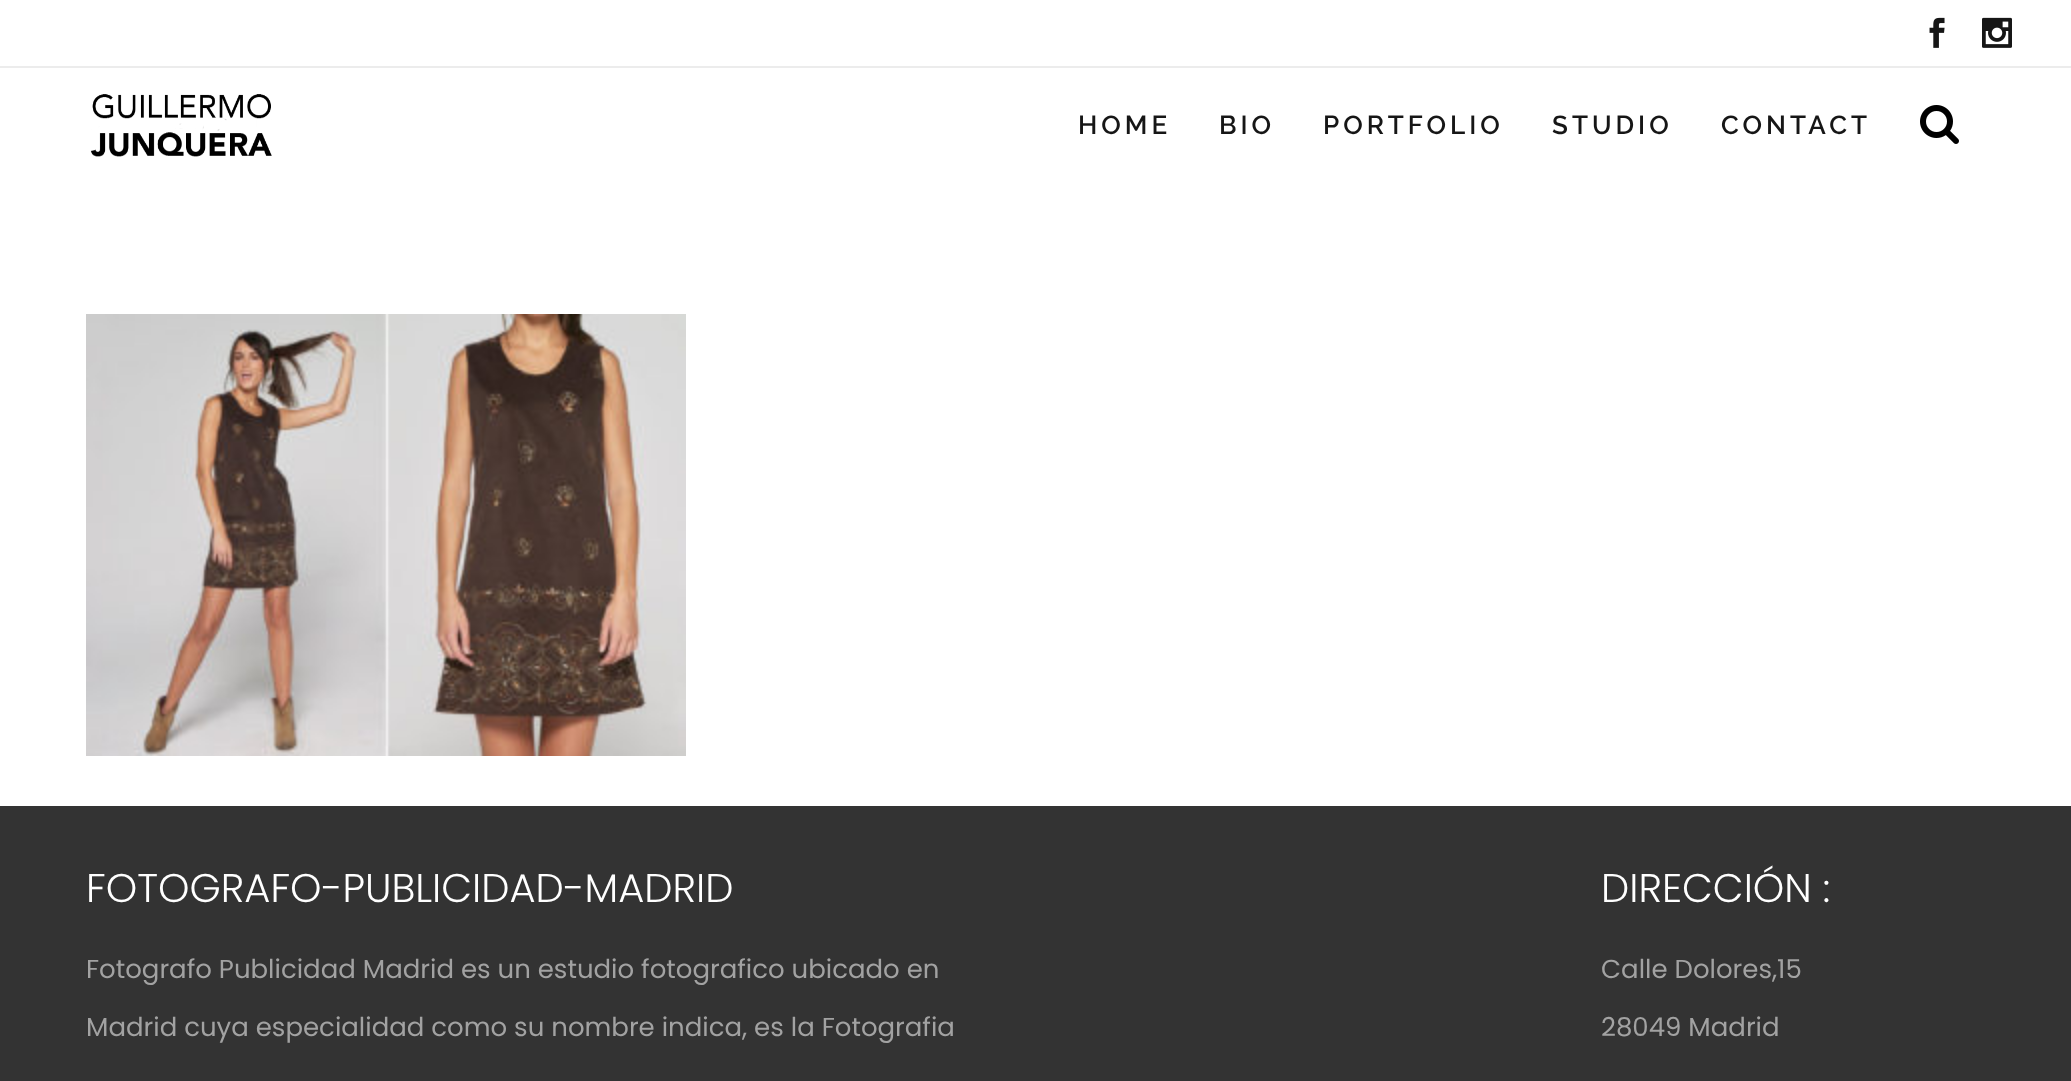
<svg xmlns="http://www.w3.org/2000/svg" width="2071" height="1081">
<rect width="100%" height="100%" fill="#fff"/>
<rect y="66" width="2071" height="2" fill="#ececec"/>
<image x="1929" y="17" width="16" height="31" href="media/1.png"/>
<image x="1982" y="17" width="30" height="31" href="media/2.png"/>
<image x="90" y="94" width="182" height="63" href="media/3.png"/>
<text x="1078" y="134" style="font-family:Raleway;font-size:26px;font-weight:600;letter-spacing:4px;fill:#161616">HOME</text>
<text x="1219" y="134" style="font-family:Raleway;font-size:26px;font-weight:600;letter-spacing:4px;fill:#161616">BIO</text>
<text x="1323" y="134" style="font-family:Raleway;font-size:26px;font-weight:600;letter-spacing:4px;fill:#161616">PORTFOLIO</text>
<text x="1552" y="134" style="font-family:Raleway;font-size:26px;font-weight:600;letter-spacing:4px;fill:#161616">STUDIO</text>
<text x="1721" y="134" style="font-family:Raleway;font-size:26px;font-weight:600;letter-spacing:4px;fill:#161616">CONTACT</text>
<image x="1920" y="105" width="39" height="39" href="media/4.png"/>
<image x="86" y="314" width="600" height="442" href="media/5.png"/>
<rect y="806" width="2071" height="275" fill="#333"/>
<text x="86" y="902" style="font-family:Poppins;font-size:40px;font-weight:300;fill:#fff">FOTOGRAFO-PUBLICIDAD-MADRID</text>
<text x="86" y="978" style="font-family:Poppins;font-size:26px;fill:#a2a2a2">Fotografo Publicidad Madrid es un estudio fotografico ubicado en</text>
<text x="86" y="1036" style="font-family:Poppins;font-size:26px;fill:#a2a2a2">Madrid cuya especialidad como su nombre indica, es la Fotografia</text>
<text x="1601" y="902" style="font-family:Poppins;font-size:40px;font-weight:300;fill:#fff">DIRECCIÓN :</text>
<text x="1601" y="978" style="font-family:Poppins;font-size:26px;fill:#a2a2a2">Calle Dolores,15</text>
<text x="1601" y="1036" style="font-family:Poppins;font-size:26px;fill:#a2a2a2">28049 Madrid</text>
</svg>
